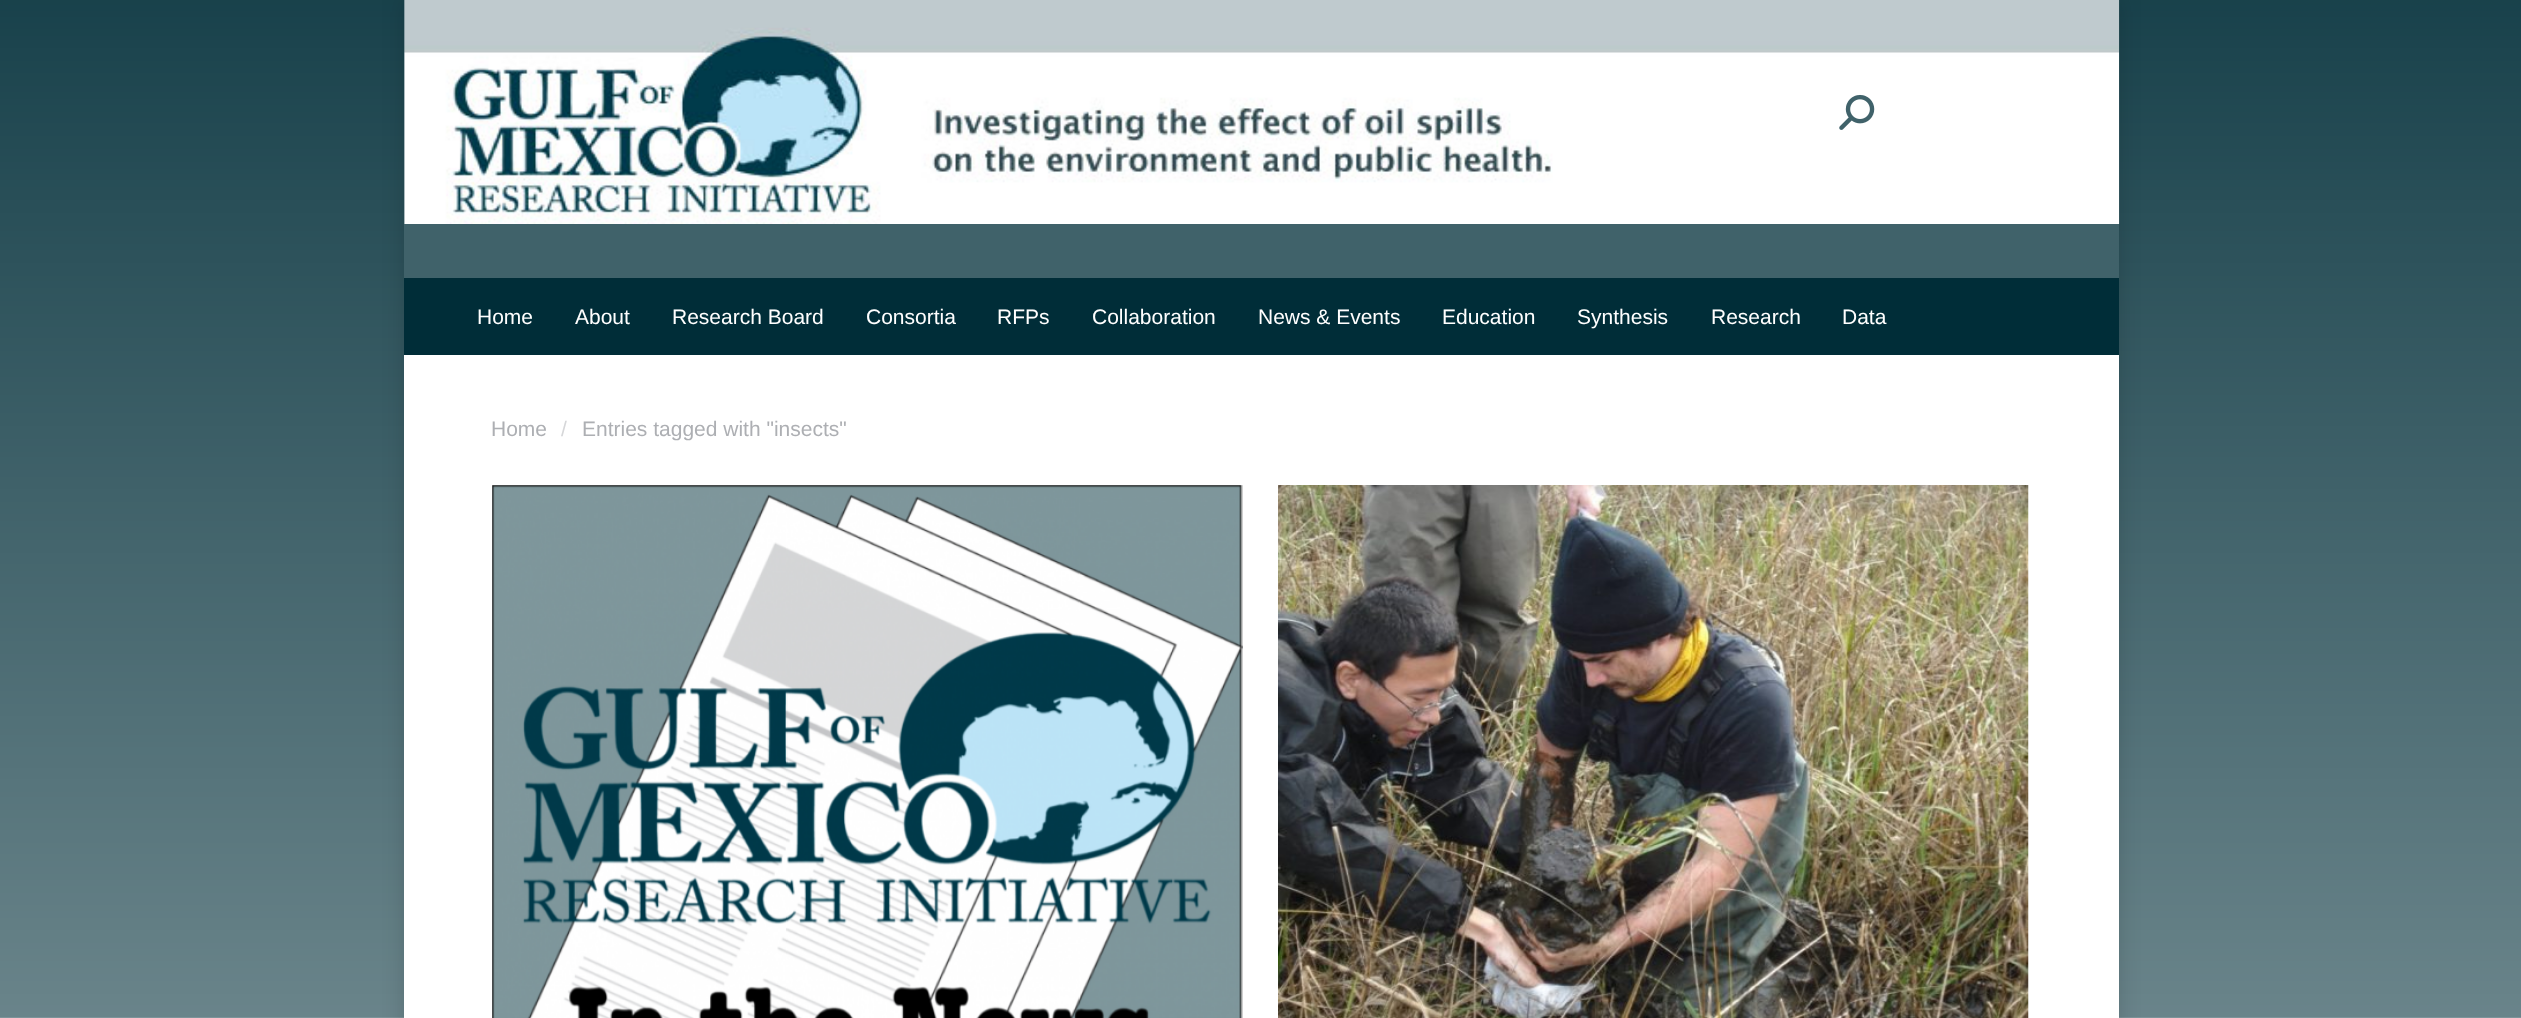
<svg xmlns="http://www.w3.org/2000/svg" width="2521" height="1018">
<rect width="100%" height="100%" fill="#fff"/>
<image x="0" y="0" width="2521" height="1018" href="media/1.png"/>
<rect x="404" width="1715" height="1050" fill="#00000026" filter="blur(10.5px)"/>
<rect x="404" y="355" width="1715" height="663" fill="#fff"/>
<rect x="404" width="1715" height="278" fill="#40626a"/>
<image x="404" y="0" width="1716" height="224" href="media/2.png"/>
<image x="1839" y="94" width="36" height="36" href="media/3.png"/>
<rect x="404" y="278" width="1715" height="77" fill="#002d38"/>
<text x="477" y="324" style="font-family:Liberation Sans;font-size:21px;fill:#fff">Home</text>
<text x="575" y="324" style="font-family:Liberation Sans;font-size:21px;fill:#fff">About</text>
<text x="672" y="324" style="font-family:Liberation Sans;font-size:21px;fill:#fff">Research Board</text>
<text x="866" y="324" style="font-family:Liberation Sans;font-size:21px;fill:#fff">Consortia</text>
<text x="997" y="324" style="font-family:Liberation Sans;font-size:21px;fill:#fff">RFPs</text>
<text x="1092" y="324" style="font-family:Liberation Sans;font-size:21px;fill:#fff">Collaboration</text>
<text x="1258" y="324" style="font-family:Liberation Sans;font-size:21px;fill:#fff">News &amp; Events</text>
<text x="1442" y="324" style="font-family:Liberation Sans;font-size:21px;fill:#fff">Education</text>
<text x="1577" y="324" style="font-family:Liberation Sans;font-size:21px;fill:#fff">Synthesis</text>
<text x="1711" y="324" style="font-family:Liberation Sans;font-size:21px;fill:#fff">Research</text>
<text x="1842" y="324" style="font-family:Liberation Sans;font-size:21px;fill:#fff">Data</text>
<text x="491" y="436" style="font-family:Liberation Sans;font-size:21px;fill:#adafb3">Home</text>
<text x="561" y="436" style="font-family:Liberation Sans;font-size:21px;fill:#d6d7d9">/</text>
<text x="582" y="436" style="font-family:Liberation Sans;font-size:21px;fill:#adafb3">Entries tagged with "insects"</text>
<rect x="492" y="485" width="751" height="533" fill="#f6f6f6"/>
<image x="492" y="485" width="751" height="533" href="media/4.png"/>
<image x="1278" y="485" width="751" height="533" href="media/5.png"/>
</svg>
